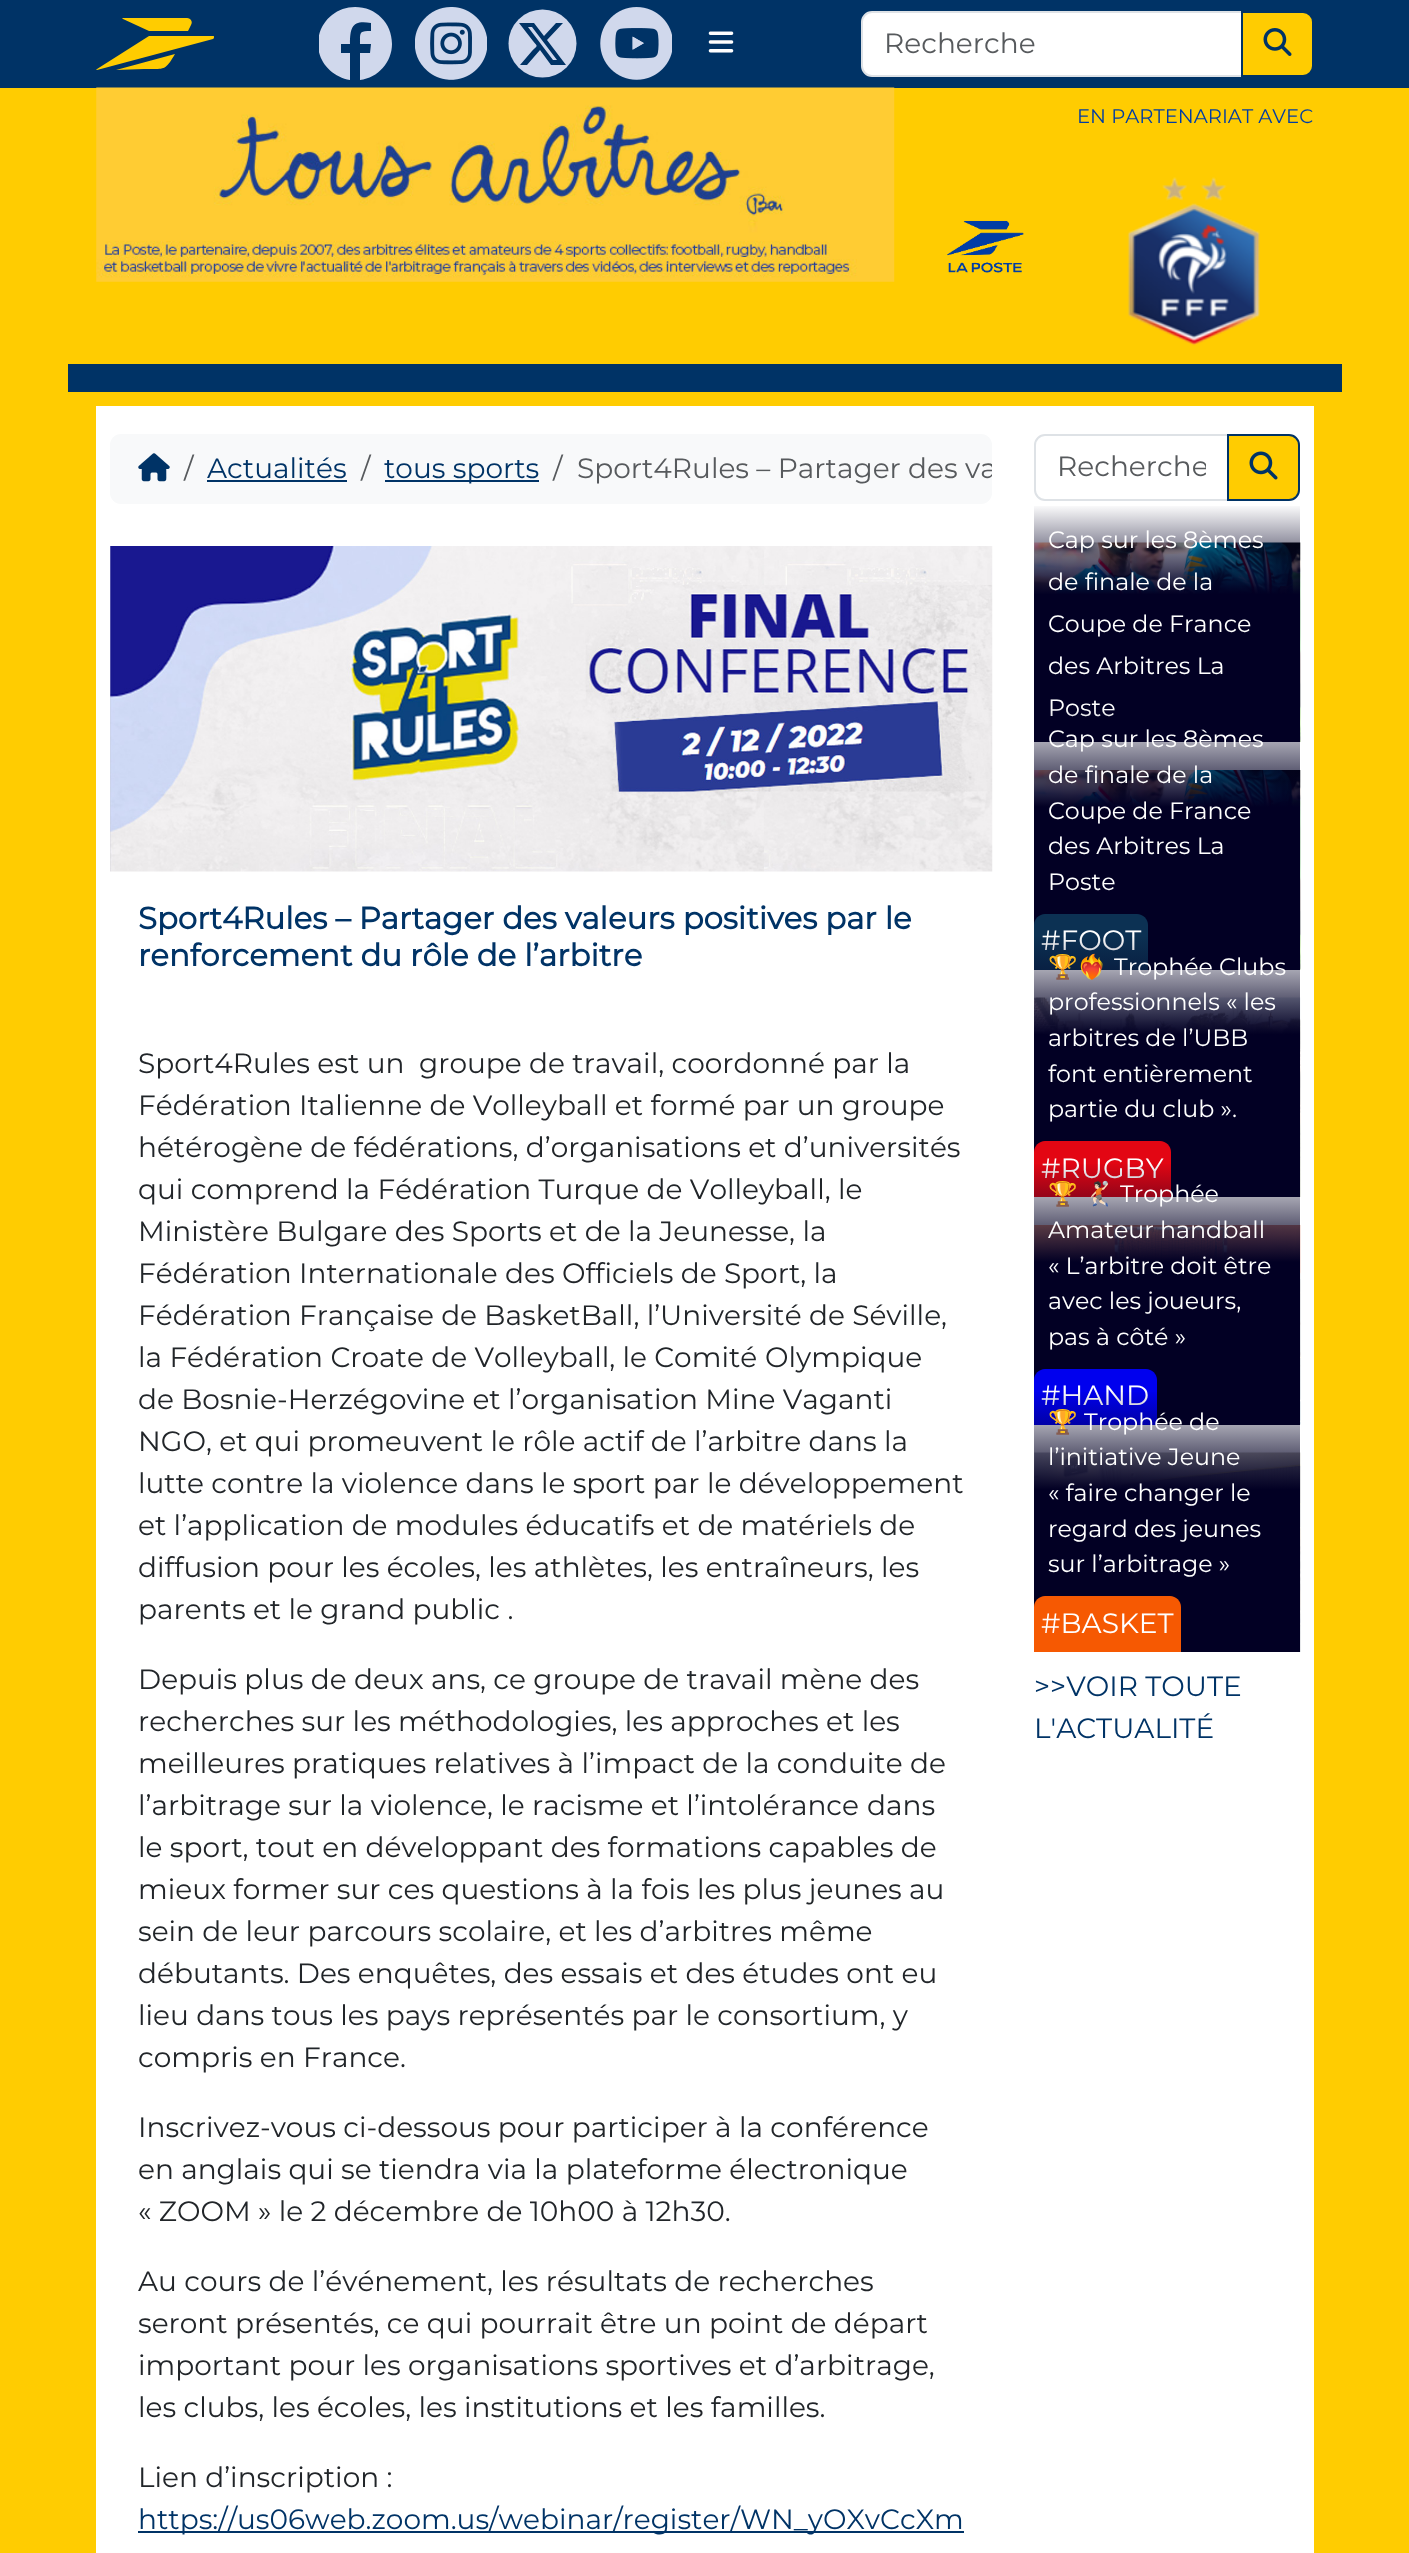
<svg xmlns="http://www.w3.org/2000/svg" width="1409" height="2553">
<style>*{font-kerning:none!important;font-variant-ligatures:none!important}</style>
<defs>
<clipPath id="clip1"><rect x="319" y="7" width="73" height="74"/></clipPath>
<clipPath id="clip2"><rect x="110" y="434" width="882" height="70" rx="11"/></clipPath>
<clipPath id="clip3"><rect x="1057" y="450" width="149" height="33"/></clipPath>
<linearGradient id="g1" gradientUnits="userSpaceOnUse" x1="1167" y1="742" x2="1167" y2="504"><stop offset="0.62" stop-color="#020024"/><stop offset="1" stop-color="#020024" stop-opacity="0"/></linearGradient>
<linearGradient id="g2" gradientUnits="userSpaceOnUse" x1="1167" y1="970" x2="1167" y2="707"><stop offset="0.62" stop-color="#020024"/><stop offset="1" stop-color="#020024" stop-opacity="0"/></linearGradient>
<linearGradient id="g3" gradientUnits="userSpaceOnUse" x1="1167" y1="1197" x2="1167" y2="935"><stop offset="0.62" stop-color="#020024"/><stop offset="1" stop-color="#020024" stop-opacity="0"/></linearGradient>
<linearGradient id="g4" gradientUnits="userSpaceOnUse" x1="1167" y1="1425" x2="1167" y2="1162"><stop offset="0.62" stop-color="#020024"/><stop offset="1" stop-color="#020024" stop-opacity="0"/></linearGradient>
<linearGradient id="g5" gradientUnits="userSpaceOnUse" x1="1167" y1="1652" x2="1167" y2="1390"><stop offset="0.62" stop-color="#020024"/><stop offset="1" stop-color="#020024" stop-opacity="0"/></linearGradient>
</defs>
<rect width="100%" height="100%" fill="#ffcc01"/>
<rect width="1409" height="88" fill="#036"/>
<path d="M123 19l26 12h39l3-6c2-3 0-7-4-7h-64c-1 0-1 1 0 1z" fill="#fc0"/>
<path d="M149 36h64c1 0 1 0 1 1c0 1 0 1-1 2l-116 31c-1 0-1-1 0-1z" fill="#fc0"/>
<path d="M116 70l28-1c21 0 21 2 31-15z" fill="#fc0"/>
<g clip-path="url(#clip1)">
<path d="M355 7c-20 0-37 16-37 37c0 18 14 33 32 36v-27h-9v-9h9c0-18 3-24 21-21v8c-12 0-11 1-11 13h11l-1 9h-10v27c18-2 32-18 32-36c0-21-16-37-37-37z" fill="#d0d8ec"/>
</g>
<image x="415" y="7" width="72" height="73" href="media/1.png"/>
<circle cx="542.5" cy="43.5" r="34" fill="#d0d8ec"/>
<path d="M556 23h7l-16 17l19 25h-15l-11-15l-13 15h-7l12-14c6-6 6-4 1-10l-14-18h15l10 13zm1 37l-25-33h-4l25 33z" fill="#036"/>
<image x="600" y="7" width="72" height="73" href="media/2.png"/>
<image x="708" y="31" width="26" height="22" href="media/3.png"/>
<path d="M872 12h370v64h-370c-5.5 0-10-4.5-10-10v-44c0-5.5 4.5-10 10-10z" fill="#fff" stroke="#dee2e6" stroke-width="2"/>
<text x="884" y="53" style="font-family:Montserrat;font-size:28px;font-weight:100;fill:#575a5d">Recherche</text>
<path d="M1242 12h61c5.5 0 10 4.5 10 10v44c0 5.5-4.5 10-10 10h-61z" fill="#ffcc01" stroke="#036" stroke-width="2"/>
<image x="1263" y="28" width="29" height="28" href="media/4.png"/>
<image x="96" y="87" width="799" height="195" href="media/5.png"/>
<text x="1077" y="123" style="font-family:Montserrat;font-size:19.6px;font-weight:100;fill:#003da5">EN PARTENARIAT AVEC</text>
<image x="1127" y="177" width="133" height="169" href="media/6.png"/>
<image x="947" y="220" width="77" height="53" href="media/7.png"/>
<rect x="68" y="364" width="1274" height="28" fill="#036"/>
<rect x="96" y="406" width="1218" height="2147" fill="#fff"/>
<rect x="110" y="434" width="882" height="70" rx="11" fill="#f8f9fa"/>
<image x="138" y="453" width="32" height="29" href="media/8.png"/>
<text x="184" y="478" style="font-family:Montserrat;font-size:28px;font-weight:100;fill:#575a5d">/</text>
<text x="207" y="478" style="font-family:Montserrat;font-size:28px;font-weight:100;fill:#036">Actualités</text>
<rect x="207" y="480" width="140" height="2" fill="#036"/>
<text x="361" y="478" style="font-family:Montserrat;font-size:28px;font-weight:100;fill:#575a5d">/</text>
<rect x="385" y="480" width="154" height="2" fill="#036"/>
<text x="384" y="478" style="font-family:Montserrat;font-size:28px;font-weight:100;fill:#036">tous sports</text>
<text x="553" y="478" style="font-family:Montserrat;font-size:28px;font-weight:100;fill:#575a5d">/</text>
<g clip-path="url(#clip2)">
<text x="577" y="478" style="font-family:Montserrat;font-size:28px;font-weight:100;fill:#575a5d">Sport4Rules – Partager des va</text>
</g>
<image x="110" y="546" width="883" height="326" href="media/9.png"/>
<text x="138" y="929" style="font-family:Montserrat;font-size:30.8px;font-weight:bold;fill:#036">Sport4Rules – Partager des valeurs positives par le</text>
<text x="138" y="966" style="font-family:Montserrat;font-size:30.8px;font-weight:bold;fill:#036">renforcement du rôle de l’arbitre</text>
<text x="138" y="1073" style="font-family:Montserrat;font-size:28px;font-weight:100;fill:#212529" xml:space="preserve">Sport4Rules est un  groupe de travail, coordonné par la</text>
<text x="138" y="1115" style="font-family:Montserrat;font-size:28px;font-weight:100;fill:#212529">Fédération Italienne de Volleyball et formé par un groupe</text>
<text x="138" y="1157" style="font-family:Montserrat;font-size:28px;font-weight:100;fill:#212529">hétérogène de fédérations, d’organisations et d’universités</text>
<text x="138" y="1199" style="font-family:Montserrat;font-size:28px;font-weight:100;fill:#212529">qui comprend la Fédération Turque de Volleyball,</text>
<text x="838" y="1199" style="font-family:Montserrat;font-size:28px;font-weight:100;fill:#212529">le</text>
<text x="138" y="1241" style="font-family:Montserrat;font-size:28px;font-weight:100;fill:#212529">Ministère Bulgare des Sports et de la Jeunesse, la</text>
<text x="138" y="1283" style="font-family:Montserrat;font-size:28px;font-weight:100;fill:#212529">Fédération Internationale des Officiels de Sport, la</text>
<text x="138" y="1325" style="font-family:Montserrat;font-size:28px;font-weight:100;fill:#212529">Fédération Française de BasketBall, l’Université</text>
<text x="809" y="1325" style="font-family:Montserrat;font-size:28px;font-weight:100;fill:#212529">de Séville,</text>
<text x="138" y="1367" style="font-family:Montserrat;font-size:28px;font-weight:100;fill:#212529">la Fédération Croate de Volleyball, le Comité</text>
<text x="765" y="1367" style="font-family:Montserrat;font-size:28px;font-weight:100;fill:#212529">Olympique</text>
<text x="138" y="1409" style="font-family:Montserrat;font-size:28px;font-weight:100;fill:#212529">de Bosnie-Herzégovine et l’organisation Mine Vaganti</text>
<text x="138" y="1451" style="font-family:Montserrat;font-size:28px;font-weight:100;fill:#212529">NGO, et qui promeuvent le rôle actif de l’arbitre dans la</text>
<text x="138" y="1493" style="font-family:Montserrat;font-size:28px;font-weight:100;fill:#212529">lutte contre la violence dans le sport par le développement</text>
<text x="138" y="1535" style="font-family:Montserrat;font-size:28px;font-weight:100;fill:#212529">et l’application de modules éducatifs et de matériels de</text>
<text x="138" y="1577" style="font-family:Montserrat;font-size:28px;font-weight:100;fill:#212529">diffusion pour les écoles, les athlètes, les entraîneurs, les</text>
<text x="138" y="1619" style="font-family:Montserrat;font-size:28px;font-weight:100;fill:#212529">parents et le grand public .</text>
<text x="138" y="1689" style="font-family:Montserrat;font-size:28px;font-weight:100;fill:#212529">Depuis plus de deux ans, ce groupe de travail mène des</text>
<text x="138" y="1731" style="font-family:Montserrat;font-size:28px;font-weight:100;fill:#212529">recherches sur les méthodologies, les approches et les</text>
<text x="138" y="1773" style="font-family:Montserrat;font-size:28px;font-weight:100;fill:#212529">meilleures pratiques relatives à l’impact de la conduite de</text>
<text x="138" y="1815" style="font-family:Montserrat;font-size:28px;font-weight:100;fill:#212529">l’arbitrage sur la violence, le racisme et l’intolérance</text>
<text x="867" y="1815" style="font-family:Montserrat;font-size:28px;font-weight:100;fill:#212529">dans</text>
<text x="138" y="1857" style="font-family:Montserrat;font-size:28px;font-weight:100;fill:#212529">le sport, tout en développant des formations capables de</text>
<text x="138" y="1899" style="font-family:Montserrat;font-size:28px;font-weight:100;fill:#212529">mieux former sur ces questions à la fois les plus jeunes au</text>
<text x="138" y="1941" style="font-family:Montserrat;font-size:28px;font-weight:100;fill:#212529">sein de leur parcours scolaire, et les d’arbitres même</text>
<text x="138" y="1983" style="font-family:Montserrat;font-size:28px;font-weight:100;fill:#212529">débutants. Des enquêtes, des essais et des études ont eu</text>
<text x="138" y="2025" style="font-family:Montserrat;font-size:28px;font-weight:100;fill:#212529">lieu dans tous les pays représentés par le consortium, y</text>
<text x="138" y="2067" style="font-family:Montserrat;font-size:28px;font-weight:100;fill:#212529">compris en France.</text>
<text x="138" y="2137" style="font-family:Montserrat;font-size:28px;font-weight:100;fill:#212529">Inscrivez-vous ci-dessous pour participer à la conférence</text>
<text x="138" y="2179" style="font-family:Montserrat;font-size:28px;font-weight:100;fill:#212529">en anglais qui se tiendra via la plateforme électronique</text>
<text x="138" y="2221" style="font-family:Montserrat;font-size:28px;font-weight:100;fill:#212529">« ZOOM » le 2 décembre de 10h00 à 12h30.</text>
<text x="138" y="2291" style="font-family:Montserrat;font-size:28px;font-weight:100;fill:#212529">Au cours de l’événement, les résultats de recherches</text>
<text x="138" y="2333" style="font-family:Montserrat;font-size:28px;font-weight:100;fill:#212529">seront présentés, ce qui pourrait être un point de départ</text>
<text x="138" y="2375" style="font-family:Montserrat;font-size:28px;font-weight:100;fill:#212529">important pour les organisations sportives et d’arbitrage,</text>
<text x="138" y="2417" style="font-family:Montserrat;font-size:28px;font-weight:100;fill:#212529">les clubs, les écoles, les institutions et les familles.</text>
<text x="138" y="2487" style="font-family:Montserrat;font-size:28px;font-weight:100;fill:#212529">Lien d’inscription :</text>
<rect x="138" y="2531" width="826" height="2" fill="#036"/>
<text x="138" y="2529" style="font-family:Montserrat;font-size:28px;font-weight:100;fill:#036">https://us06web.zoom.us/webinar/register/WN_yOXvCcXm</text>
<path d="M1045 435h183v65h-183c-5.5 0-10-4.5-10-10v-45c0-5.5 4.5-10 10-10z" fill="none" stroke="#dee2e6" stroke-width="2"/>
<g clip-path="url(#clip3)">
<text x="1057" y="476" style="font-family:Montserrat;font-size:28px;font-weight:100;fill:#575a5d">Recherche</text>
</g>
<path d="M1228 435h61c5.5 0 10 4.5 10 10v45c0 5.5-4.5 10-10 10h-61z" fill="#ffcc01" stroke="#036" stroke-width="2"/>
<image x="1249" y="451" width="29" height="29" href="media/10.png"/>
<image x="1034" y="542" width="267" height="200" href="media/11.png"/>
<rect x="1034" y="506" width="266" height="236" fill="url(#g1)"/>
<text x="1048" y="548" style="font-family:Montserrat;font-size:23.75px;font-weight:100;fill:#fff">Cap sur les 8èmes</text>
<text x="1048" y="590" style="font-family:Montserrat;font-size:23.75px;font-weight:100;fill:#fff">de finale de la</text>
<text x="1048" y="632" style="font-family:Montserrat;font-size:23.75px;font-weight:100;fill:#fff">Coupe de France</text>
<text x="1048" y="674" style="font-family:Montserrat;font-size:23.75px;font-weight:100;fill:#fff">des Arbitres La</text>
<text x="1048" y="716" style="font-family:Montserrat;font-size:23.75px;font-weight:100;fill:#fff">Poste</text>
<image x="1034" y="770" width="267" height="200" href="media/12.png"/>
<rect x="1034" y="709" width="266" height="261" fill="url(#g2)"/>
<text x="1048" y="747" style="font-family:Montserrat;font-size:23.75px;font-weight:100;fill:#fff">Cap sur les 8èmes</text>
<text x="1048" y="783" style="font-family:Montserrat;font-size:23.75px;font-weight:100;fill:#fff">de finale de la</text>
<text x="1048" y="819" style="font-family:Montserrat;font-size:23.75px;font-weight:100;fill:#fff">Coupe de France</text>
<text x="1048" y="854" style="font-family:Montserrat;font-size:23.75px;font-weight:100;fill:#fff">des Arbitres La</text>
<text x="1048" y="890" style="font-family:Montserrat;font-size:23.75px;font-weight:100;fill:#fff">Poste</text>
<path d="M1045 914h92c6 0 11 5 11 11v45h-114v-45c0-6 5-11 11-11z" fill="#0c3153"/>
<text x="1041" y="950" style="font-family:Montserrat;font-size:28px;font-weight:100;fill:#fff">#FOOT</text>
<image x="1034" y="997" width="267" height="200" href="media/13.png"/>
<rect x="1034" y="937" width="266" height="260" fill="url(#g3)"/>
<text x="1048" y="975" style="font-family:Noto Color Emoji;font-size:23.75px;fill:#fff">🏆❤️‍🔥</text>
<text x="1114" y="975" style="font-family:Montserrat;font-size:23.75px;font-weight:100;fill:#fff">Trophée Clubs</text>
<text x="1048" y="1010" style="font-family:Montserrat;font-size:23.75px;font-weight:100;fill:#fff">professionnels « les</text>
<text x="1048" y="1046" style="font-family:Montserrat;font-size:23.75px;font-weight:100;fill:#fff">arbitres de l’UBB</text>
<text x="1048" y="1082" style="font-family:Montserrat;font-size:23.75px;font-weight:100;fill:#fff">font entièrement</text>
<text x="1048" y="1117" style="font-family:Montserrat;font-size:23.75px;font-weight:100;fill:#fff">partie du club ».</text>
<path d="M1045 1141h115c6 0 11 5 11 11v45h-137v-45c0-6 5-11 11-11z" fill="#e30613"/>
<text x="1041" y="1178" style="font-family:Montserrat;font-size:28px;font-weight:100;fill:#fff">#RUGBY</text>
<image x="1034" y="1225" width="267" height="200" href="media/14.png"/>
<rect x="1034" y="1164" width="266" height="261" fill="url(#g4)"/>
<text x="1048" y="1202" style="font-family:Noto Color Emoji;font-size:23.75px;fill:#fff">🏆</text>
<text x="1084" y="1202" style="font-family:Noto Color Emoji;font-size:23.75px;fill:#fff">🤾🏻</text>
<text x="1120" y="1202" style="font-family:Montserrat;font-size:23.75px;font-weight:100;fill:#fff">Trophée</text>
<text x="1048" y="1238" style="font-family:Montserrat;font-size:23.75px;font-weight:100;fill:#fff">Amateur handball</text>
<text x="1048" y="1274" style="font-family:Montserrat;font-size:23.75px;font-weight:100;fill:#fff">« L’arbitre doit être</text>
<text x="1048" y="1309" style="font-family:Montserrat;font-size:23.75px;font-weight:100;fill:#fff">avec les joueurs,</text>
<text x="1048" y="1345" style="font-family:Montserrat;font-size:23.75px;font-weight:100;fill:#fff">pas à côté »</text>
<path d="M1045 1369h101c6 0 11 5 11 11v45h-123v-45c0-6 5-11 11-11z" fill="#00e"/>
<text x="1041" y="1405" style="font-family:Montserrat;font-size:28px;font-weight:100;fill:#fff">#HAND</text>
<image x="1034" y="1452" width="267" height="200" href="media/15.png"/>
<rect x="1034" y="1392" width="266" height="260" fill="url(#g5)"/>
<text x="1048" y="1430" style="font-family:Noto Color Emoji;font-size:23.75px;fill:#fff">🏆</text>
<text x="1084" y="1430" style="font-family:Montserrat;font-size:23.75px;font-weight:100;fill:#fff">Trophée de</text>
<text x="1048" y="1465" style="font-family:Montserrat;font-size:23.75px;font-weight:100;fill:#fff">l’initiative Jeune</text>
<text x="1048" y="1501" style="font-family:Montserrat;font-size:23.75px;font-weight:100;fill:#fff">« faire changer le</text>
<text x="1048" y="1537" style="font-family:Montserrat;font-size:23.75px;font-weight:100;fill:#fff">regard des jeunes</text>
<text x="1048" y="1572" style="font-family:Montserrat;font-size:23.75px;font-weight:100;fill:#fff">sur l’arbitrage »</text>
<path d="M1045 1596h125c6 0 11 5 11 11v45h-147v-45c0-6 5-11 11-11z" fill="#f65902"/>
<text x="1041" y="1633" style="font-family:Montserrat;font-size:28px;font-weight:100;fill:#fff">#BASKET</text>
<text x="1034" y="1696" style="font-family:Montserrat;font-size:28px;font-weight:100;fill:#036">&gt;&gt;VOIR TOUTE</text>
<text x="1034" y="1738" style="font-family:Montserrat;font-size:28px;font-weight:100;fill:#036">L'ACTUALITÉ</text>
</svg>
